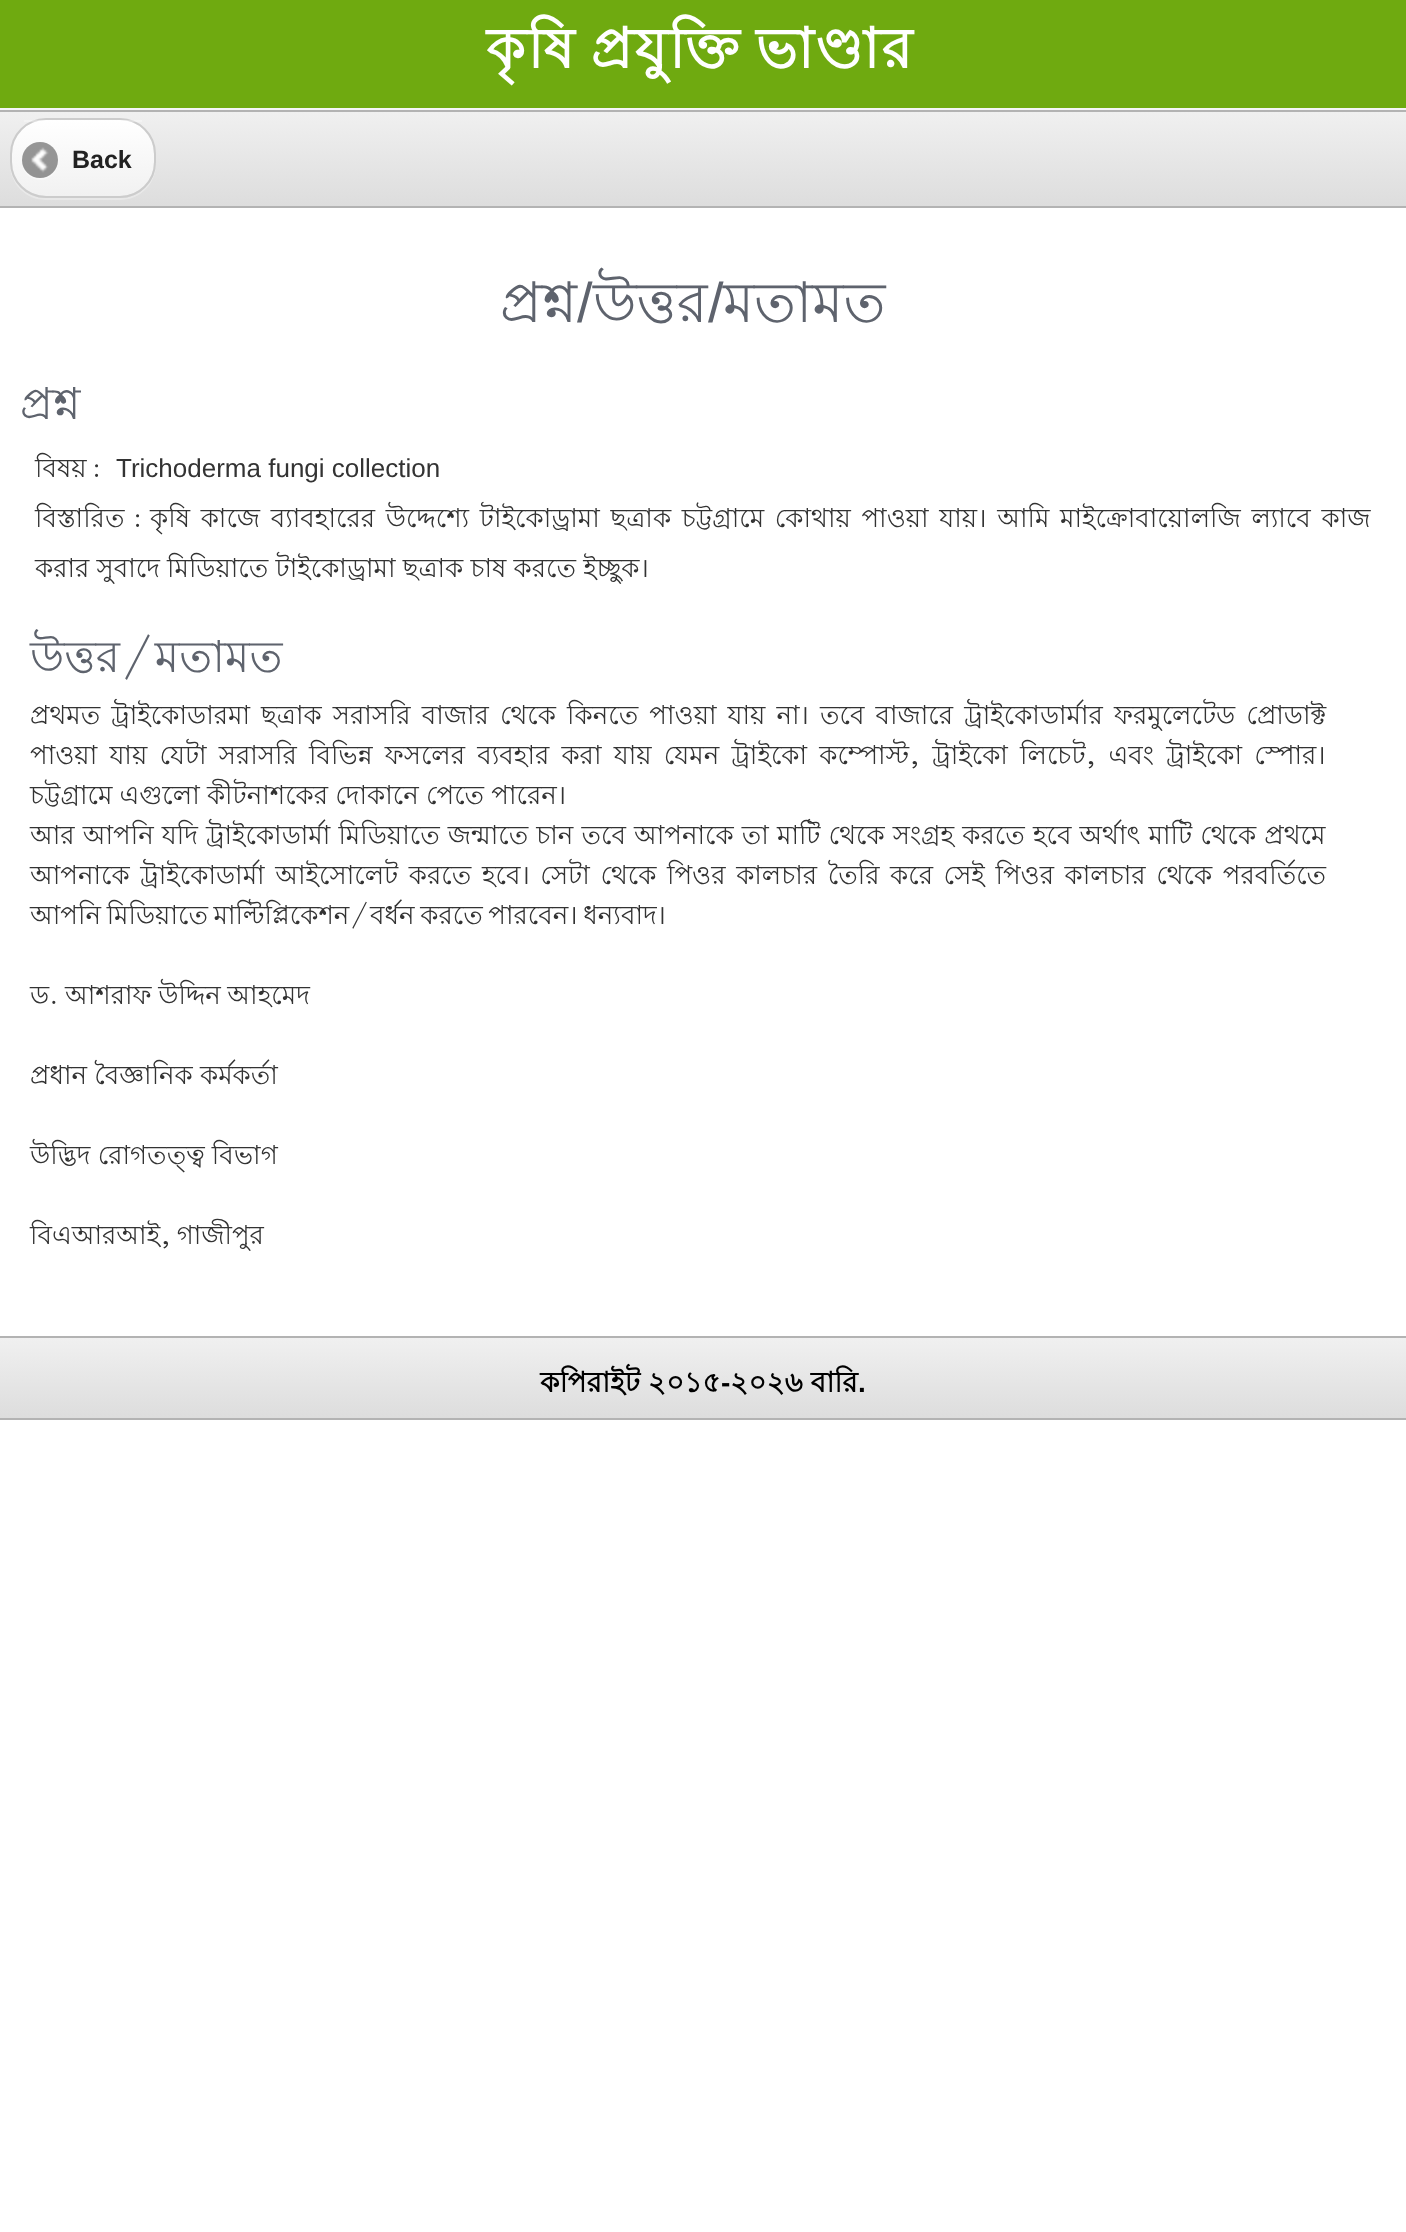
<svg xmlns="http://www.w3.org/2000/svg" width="1406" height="2232">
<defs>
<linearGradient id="g1" gradientUnits="userSpaceOnUse" x1="703" y1="112" x2="703" y2="206"><stop offset="0" stop-color="#f0f0f0"/><stop offset="1" stop-color="#ddd"/></linearGradient>
<linearGradient id="g2" gradientUnits="userSpaceOnUse" x1="83" y1="120" x2="83" y2="196"><stop offset="0" stop-color="#fff"/><stop offset="1" stop-color="#f1f1f1"/></linearGradient>
<linearGradient id="g3" gradientUnits="userSpaceOnUse" x1="703" y1="1338" x2="703" y2="1418"><stop offset="0" stop-color="#f0f0f0"/><stop offset="1" stop-color="#ddd"/></linearGradient>
</defs>
<rect width="100%" height="100%" fill="#fff"/>
<rect y="108" width="1406" height="2" fill="#f6f6f7"/>
<rect width="1406" height="108" fill="#6faa10"/>
<text x="486" y="68" word-spacing="-3" style="font-family:Lohit Bengali;font-size:56px;font-weight:bold;letter-spacing:2px;fill:#fff">কৃষি প্রযুক্তি ভাণ্ডার</text>
<rect y="112" width="1406" height="94" fill="url(#g1)"/>
<rect y="110" width="1406" height="2" fill="#b3b3b3"/>
<rect y="206" width="1406" height="2" fill="#b3b3b3"/>
<path d="M10 162v2c0 20 16 36 36 36h74c20 0 36-16 36-36v-2c0 20-16 36-36 36h-74c-20 0-36-16-36-36z" fill="#ffffff4d"/>
<rect x="12" y="120" width="142" height="76" rx="34" fill="url(#g2)"/>
<rect x="11" y="119" width="144" height="78" rx="35" fill="none" stroke="#ccc" stroke-width="2"/>
<rect x="24" y="120" width="118" height="2" fill="#ffffff4d"/>
<path d="M22 161c-1 18 23 26 33 11c2-3 3-7 3-11c-1.5 22.5-34.5 22.5-36 0z" fill="#f9f9f9"/>
<circle cx="40" cy="160" r="18" fill="#00000066"/>
<image x="31" y="147" width="18" height="26" href="media/1.png"/>
<text x="72" y="168" style="font-family:Liberation Sans;font-size:25px;font-weight:bold;fill:#222">Back</text>
<text x="500" y="322" style="font-family:Lohit Bengali;font-size:56px;fill:#5e636d">প্রশ্ন</text>
<text x="577" y="322" style="font-family:Liberation Sans;font-size:56px;fill:#5e636d">/</text>
<text x="593" y="322" style="font-family:Lohit Bengali;font-size:56px;fill:#5e636d">উত্তর</text>
<text x="708" y="322" style="font-family:Liberation Sans;font-size:56px;fill:#5e636d">/</text>
<text x="723" y="322" style="font-family:Lohit Bengali;font-size:56px;fill:#5e636d">মতামত</text>
<text x="20" y="419" style="font-family:Lohit Bengali;font-size:44px;fill:#5e636d">প্রশ্ন</text>
<text x="35" y="477" style="font-family:Lohit Bengali;font-size:26px;fill:#333">বিষয়</text>
<text x="92" y="477" style="font-family:Lohit Bengali;font-size:26px;fill:#333">:</text>
<text x="116" y="477" style="font-family:Liberation Sans;font-size:26px;fill:#333">Trichoderma fungi collection</text>
<text x="35" y="527" style="font-family:Lohit Bengali;font-size:26px;fill:#333">বিস্তারিত</text>
<text x="133" y="527" style="font-family:Lohit Bengali;font-size:26px;fill:#333">:</text>
<text x="150" y="527" word-spacing="3.5" style="font-family:Lohit Bengali;font-size:26px;fill:#333">কৃষি কাজে ব্যাবহারের উদ্দেশ্যে টাইকোড্রামা ছত্রাক চট্টগ্রামে কোথায় পাওয়া যায়। আমি মাইক্রোবায়োলজি ল্যাবে কাজ</text>
<text x="35" y="577" style="font-family:Lohit Bengali;font-size:26px;fill:#333">করার সুবাদে মিডিয়াতে টাইকোড্রামা ছত্রাক চাষ করতে ইচ্ছুক।</text>
<text x="30" y="672" style="font-family:Lohit Bengali;font-size:44px;fill:#5e636d">উত্তর/মতামত</text>
<text x="30" y="724" word-spacing="3.9" style="font-family:Lohit Bengali;font-size:26px;fill:#333">প্রথমত ট্রাইকোডারমা ছত্রাক সরাসরি বাজার থেকে কিনতে পাওয়া যায় না। তবে বাজারে ট্রাইকোডার্মার ফরমুলেটেড প্রোডাক্ট</text>
<text x="30" y="764" word-spacing="5" style="font-family:Lohit Bengali;font-size:26px;fill:#333">পাওয়া যায় যেটা সরাসরি বিভিন্ন ফসলের ব্যবহার করা যায় যেমন ট্রাইকো কম্পোস্ট, ট্রাইকো লিচেট, এবং ট্রাইকো স্পোর।</text>
<text x="30" y="804" style="font-family:Lohit Bengali;font-size:26px;fill:#333">চট্টগ্রামে এগুলো কীটনাশকের দোকানে পেতে পারেন।</text>
<text x="30" y="844" word-spacing="0.9" style="font-family:Lohit Bengali;font-size:26px;fill:#333">আর আপনি যদি ট্রাইকোডার্মা মিডিয়াতে জন্মাতে চান তবে আপনাকে তা মাটি থেকে সংগ্রহ করতে হবে অর্থাৎ মাটি থেকে প্রথমে</text>
<text x="30" y="884" word-spacing="3.4" style="font-family:Lohit Bengali;font-size:26px;fill:#333">আপনাকে ট্রাইকোডার্মা আইসোলেট করতে হবে। সেটা থেকে পিওর কালচার তৈরি করে সেই পিওর কালচার থেকে পরবর্তিতে</text>
<text x="30" y="924" word-spacing="-1.5" style="font-family:Lohit Bengali;font-size:26px;fill:#333">আপনি মিডিয়াতে মাল্টিপ্লিকেশন/বর্ধন করতে পারবেন। ধন্যবাদ।</text>
<text x="30" y="1004" word-spacing="-0.5" style="font-family:Lohit Bengali;font-size:26px;fill:#333">ড. আশরাফ উদ্দিন আহমেদ</text>
<text x="30" y="1084" style="font-family:Lohit Bengali;font-size:26px;fill:#333">প্রধান বৈজ্ঞানিক কর্মকর্তা</text>
<text x="30" y="1164" style="font-family:Lohit Bengali;font-size:26px;fill:#333">উদ্ভিদ রোগতত্ত্ব বিভাগ</text>
<text x="30" y="1244" word-spacing="-1.5" style="font-family:Lohit Bengali;font-size:26px;fill:#333">বিএআরআই, গাজীপুর</text>
<rect y="1338" width="1406" height="80" fill="url(#g3)"/>
<rect y="1336" width="1406" height="2" fill="#b3b3b3"/>
<rect y="1418" width="1406" height="2" fill="#b3b3b3"/>
<text x="540" y="1392" style="font-family:Lohit Bengali;font-size:28px;font-weight:bold;fill:#000">কপিরাইট ২০১৫</text>
<text x="721" y="1392" style="font-family:Liberation Sans;font-size:28px;font-weight:bold;fill:#000">-</text>
<text x="730" y="1392" style="font-family:Lohit Bengali;font-size:28px;font-weight:bold;fill:#000">২০২৬ বারি</text>
<text x="858" y="1392" style="font-family:Liberation Sans;font-size:28px;font-weight:bold;fill:#000">.</text>
</svg>
